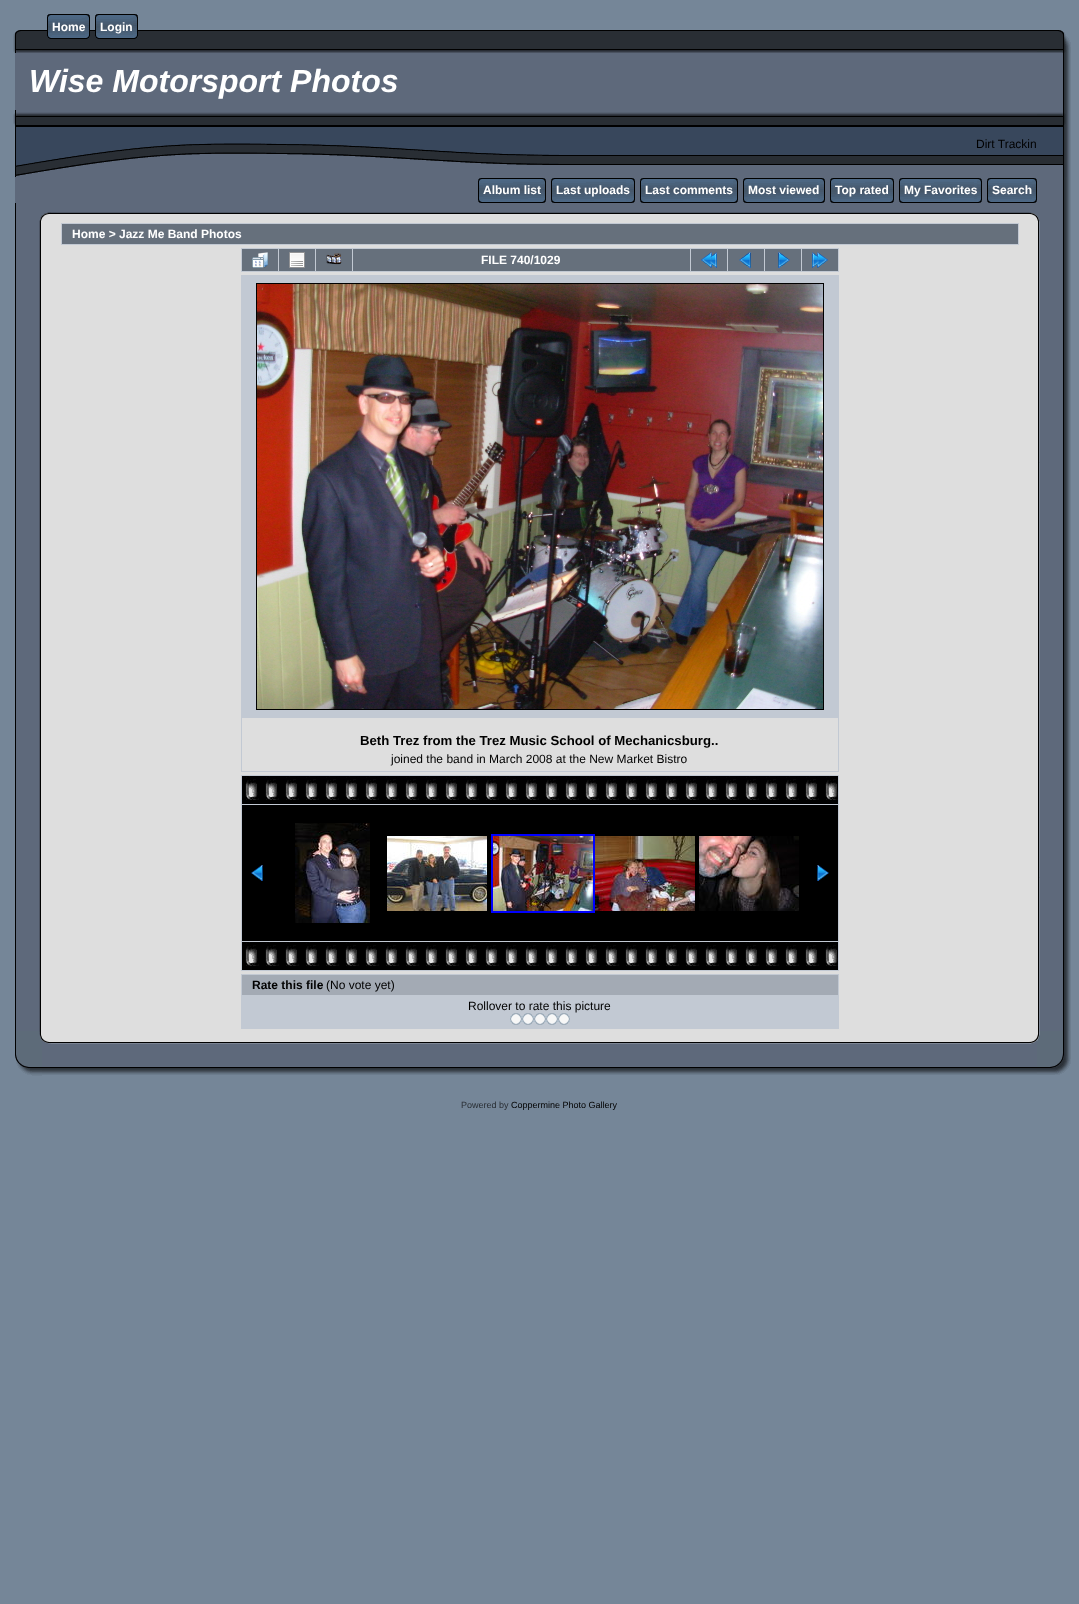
<svg xmlns="http://www.w3.org/2000/svg" width="1079" height="1604">
<rect width="100%" height="100%" fill="#758698"/>
<image x="42" y="30" width="995" height="23" href="media/1.png"/>
<image x="47" y="14" width="5" height="25" href="media/2.png"/>
<image x="52" y="14" width="33" height="25" href="media/3.png"/>
<text x="52" y="31" style="font-family:Liberation Sans;font-size:12px;font-weight:bold;fill:#fff">Home</text>
<image x="85" y="14" width="5" height="25" href="media/4.png"/>
<image x="95" y="14" width="5" height="25" href="media/2.png"/>
<image x="100" y="14" width="33" height="25" href="media/5.png"/>
<text x="100" y="31" style="font-family:Liberation Sans;font-size:12px;font-weight:bold;fill:#fff">Login</text>
<image x="133" y="14" width="5" height="25" href="media/4.png"/>
<image x="13" y="30" width="29" height="23" href="media/6.png"/>
<image x="1037" y="30" width="34" height="23" href="media/7.png"/>
<rect x="15" y="53" width="1048" height="57" fill="#5e697b"/>
<image x="1063" y="53" width="8" height="57" href="media/8.png"/>
<text x="29" y="92" style="font-family:Liberation Sans;font-size:32px;font-weight:bold;font-style:italic;fill:#fff">Wise Motorsport Photos</text>
<image x="13" y="110" width="547" height="67" href="media/9.png"/>
<image x="560" y="110" width="477" height="67" href="media/10.png"/>
<text x="976" y="148" style="font-family:Liberation Sans;font-size:12px;fill:#000">Dirt Trackin</text>
<image x="1037" y="110" width="34" height="67" href="media/11.png"/>
<rect x="15" y="177" width="1022" height="26" fill="#5e697b"/>
<image x="1037" y="177" width="34" height="26" href="media/12.png"/>
<image x="478" y="178" width="5" height="25" href="media/13.png"/>
<image x="483" y="178" width="58" height="25" href="media/14.png"/>
<text x="483" y="194" style="font-family:Liberation Sans;font-size:12px;font-weight:bold;fill:#fff">Album list</text>
<image x="541" y="178" width="5" height="25" href="media/15.png"/>
<image x="551" y="178" width="5" height="25" href="media/13.png"/>
<image x="556" y="178" width="74" height="25" href="media/16.png"/>
<text x="556" y="194" style="font-family:Liberation Sans;font-size:12px;font-weight:bold;fill:#fff">Last uploads</text>
<image x="630" y="178" width="5" height="25" href="media/15.png"/>
<image x="640" y="178" width="5" height="25" href="media/13.png"/>
<image x="645" y="178" width="88" height="25" href="media/17.png"/>
<text x="645" y="194" style="font-family:Liberation Sans;font-size:12px;font-weight:bold;fill:#fff">Last comments</text>
<image x="733" y="178" width="5" height="25" href="media/15.png"/>
<image x="743" y="178" width="5" height="25" href="media/13.png"/>
<image x="748" y="178" width="72" height="25" href="media/18.png"/>
<text x="748" y="194" style="font-family:Liberation Sans;font-size:12px;font-weight:bold;fill:#fff">Most viewed</text>
<image x="820" y="178" width="5" height="25" href="media/15.png"/>
<image x="830" y="178" width="5" height="25" href="media/13.png"/>
<image x="835" y="178" width="54" height="25" href="media/19.png"/>
<text x="835" y="194" style="font-family:Liberation Sans;font-size:12px;font-weight:bold;fill:#fff">Top rated</text>
<image x="889" y="178" width="5" height="25" href="media/15.png"/>
<image x="899" y="178" width="5" height="25" href="media/13.png"/>
<image x="904" y="178" width="73" height="25" href="media/20.png"/>
<text x="904" y="194" style="font-family:Liberation Sans;font-size:12px;font-weight:bold;fill:#fff">My Favorites</text>
<image x="977" y="178" width="5" height="25" href="media/15.png"/>
<image x="987" y="178" width="5" height="25" href="media/13.png"/>
<image x="992" y="178" width="40" height="25" href="media/21.png"/>
<text x="992" y="194" style="font-family:Liberation Sans;font-size:12px;font-weight:bold;fill:#fff">Search</text>
<image x="1032" y="178" width="5" height="25" href="media/15.png"/>
<image x="15" y="203" width="27" height="18" href="media/22.png"/>
<image x="42" y="203" width="14" height="18" href="media/23.png"/>
<image x="56" y="203" width="967" height="18" href="media/24.png"/>
<image x="1023" y="203" width="14" height="18" href="media/25.png"/>
<image x="1037" y="203" width="34" height="18" href="media/26.png"/>
<image x="15" y="221" width="27" height="810" href="media/27.png"/>
<rect x="42" y="221" width="995" height="810" fill="#dedede"/>
<rect x="61" y="223" width="958" height="22" fill="#c2c9d3"/>
<rect x="62" y="224" width="956" height="20" fill="#66707c"/>
<text x="72" y="238" style="font-family:Liberation Sans;font-size:12px;font-weight:bold;fill:#fff">Home &gt; Jazz Me Band Photos</text>
<rect x="241" y="248" width="598" height="24" fill="#c2c9d3"/>
<rect x="242" y="249" width="36" height="22" fill="#66707c"/>
<image x="252" y="252" width="16" height="16" href="media/28.png"/>
<rect x="279" y="249" width="36" height="22" fill="#66707c"/>
<image x="289" y="252" width="16" height="16" href="media/29.png"/>
<rect x="316" y="249" width="36" height="22" fill="#66707c"/>
<image x="326" y="253" width="16" height="12" href="media/30.png"/>
<rect x="353" y="249" width="337" height="22" fill="#66707c"/>
<text x="481" y="264" style="font-family:Liberation Sans;font-size:12px;font-weight:bold;fill:#fff">FILE 740/1029</text>
<rect x="691" y="249" width="36" height="22" fill="#66707c"/>
<image x="701" y="252" width="16" height="16" href="media/31.png"/>
<rect x="728" y="249" width="36" height="22" fill="#66707c"/>
<image x="739" y="252" width="12" height="16" href="media/32.png"/>
<rect x="765" y="249" width="36" height="22" fill="#66707c"/>
<image x="778" y="252" width="12" height="16" href="media/33.png"/>
<rect x="802" y="249" width="36" height="22" fill="#66707c"/>
<image x="812" y="252" width="16" height="16" href="media/34.png"/>
<rect x="241" y="275" width="598" height="497" fill="#c2c9d3"/>
<rect x="256.5" y="283.5" width="567" height="426" fill="none" stroke="#000"/>
<image x="257" y="284" width="566" height="425" href="media/35.png"/>
<rect x="242" y="718" width="596" height="53" fill="#dedede"/>
<text x="360" y="745" style="font-family:Liberation Sans;font-size:13.2px;font-weight:bold;fill:#000">Beth Trez from the Trez Music School of Mechanicsburg..</text>
<text x="391" y="763" style="font-family:Liberation Sans;font-size:12px;fill:#000">joined the band in March 2008 at the New Market Bistro</text>
<rect x="241" y="775" width="598" height="196" fill="#c2c9d3"/>
<rect x="242" y="776" width="596" height="28" fill="#000"/>
<image x="245" y="776" width="593" height="24" href="media/36.png"/>
<rect x="242" y="805" width="596" height="136" fill="#000"/>
<image x="251" y="865" width="12" height="16" href="media/37.png"/>
<image x="295" y="823" width="75" height="100" href="media/38.png"/>
<image x="387" y="836" width="100" height="75" href="media/39.png"/>
<rect x="492" y="835" width="102" height="77" fill="none" stroke="#00f" stroke-width="2"/>
<image x="493" y="836" width="100" height="75" href="media/40.png"/>
<image x="595" y="836" width="100" height="75" href="media/41.png"/>
<image x="699" y="836" width="100" height="75" href="media/42.png"/>
<image x="817" y="865" width="12" height="16" href="media/43.png"/>
<rect x="242" y="942" width="596" height="28" fill="#000"/>
<image x="245" y="942" width="593" height="24" href="media/36.png"/>
<rect x="241" y="974" width="598" height="55" fill="#c2c9d3"/>
<rect x="242" y="975" width="596" height="20" fill="#a3aab4"/>
<text x="252" y="989" style="font-family:Liberation Sans;font-size:12px;font-weight:bold;fill:#000">Rate this file</text>
<text x="326" y="989" style="font-family:Liberation Sans;font-size:12px;fill:#000">(No vote yet)</text>
<text x="468" y="1010" style="font-family:Liberation Sans;font-size:12px;fill:#000">Rollover to rate this picture</text>
<image x="510" y="1013" width="12" height="12" href="media/44.png"/>
<image x="522" y="1013" width="12" height="12" href="media/44.png"/>
<image x="534" y="1013" width="12" height="12" href="media/44.png"/>
<image x="546" y="1013" width="12" height="12" href="media/44.png"/>
<image x="558" y="1013" width="12" height="12" href="media/44.png"/>
<image x="1037" y="221" width="34" height="810" href="media/45.png"/>
<image x="1039" y="462" width="1" height="88" href="media/46.png"/>
<image x="15" y="1031" width="27" height="45" href="media/47.png"/>
<image x="42" y="1031" width="208" height="44" href="media/48.png"/>
<image x="250" y="1031" width="579" height="44" href="media/49.png"/>
<image x="829" y="1031" width="208" height="44" href="media/50.png"/>
<image x="1037" y="1031" width="34" height="44" href="media/51.png"/>
<text x="461" y="1108" style="font-family:Liberation Sans;font-size:9px;fill:#292e34">Powered by</text>
<text x="511" y="1108" style="font-family:Liberation Sans;font-size:9px;fill:#000">Coppermine Photo Gallery</text>
</svg>
